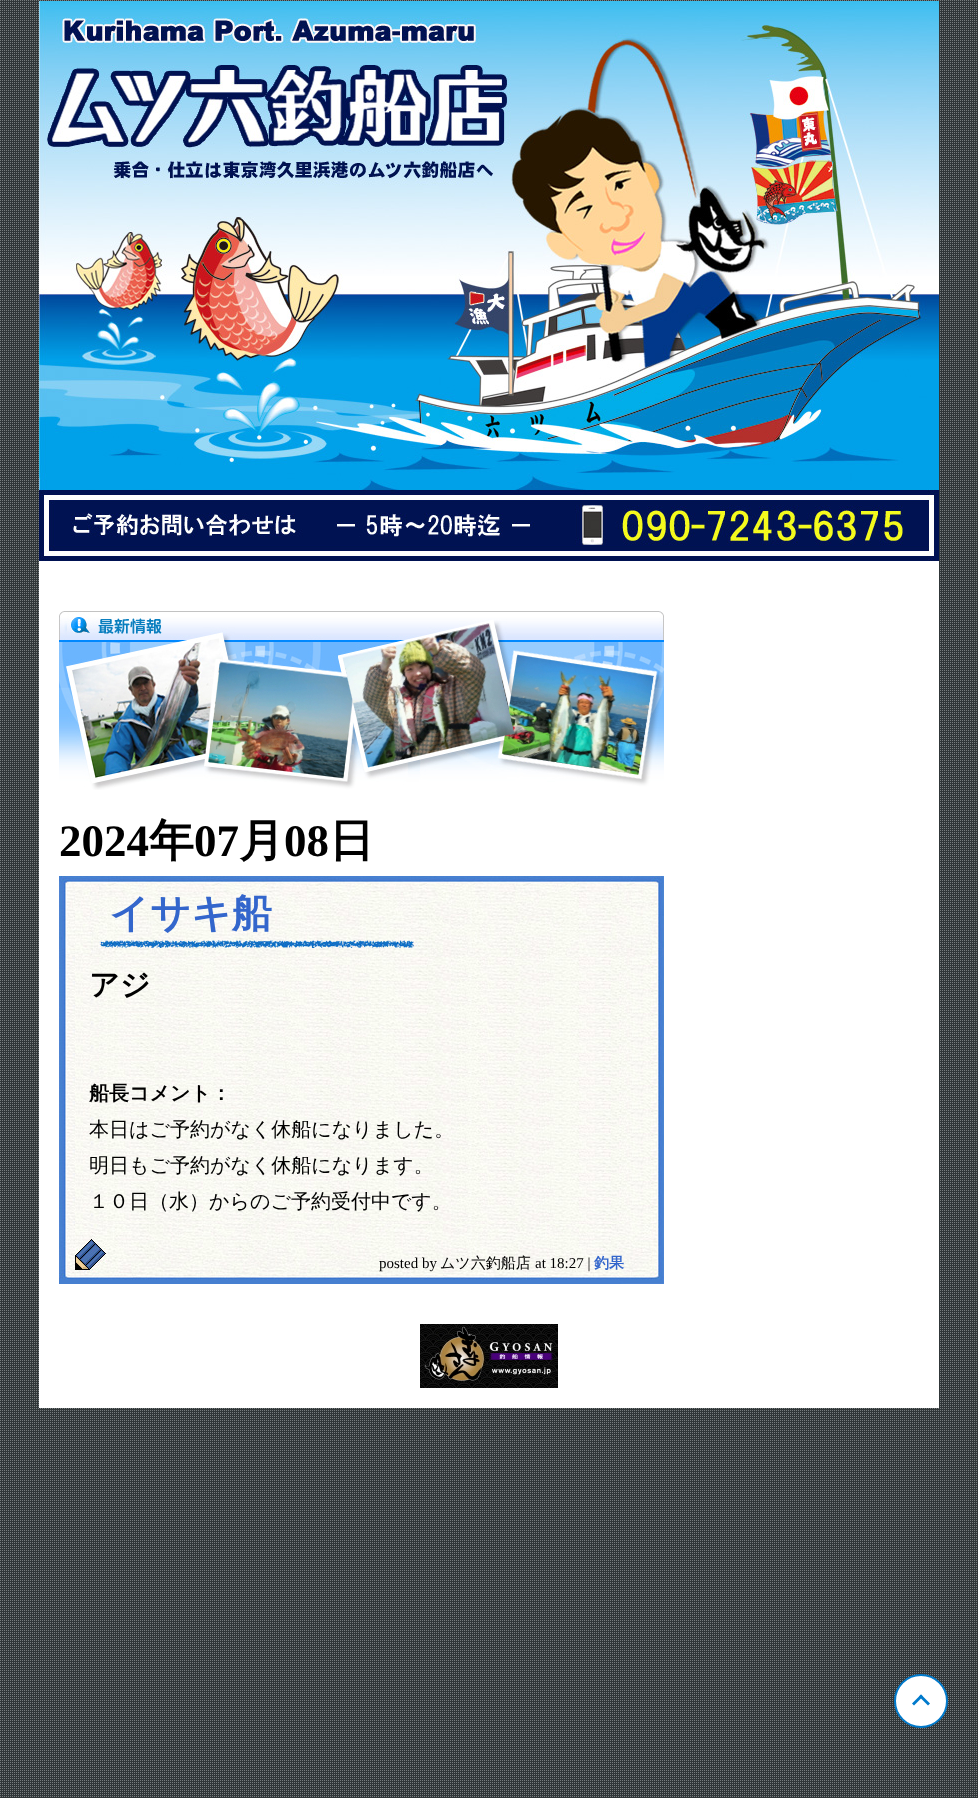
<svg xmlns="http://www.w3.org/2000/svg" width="978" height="1798">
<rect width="100%" height="100%" fill="#fff"/>
<image x="0" y="0" width="978" height="1798" href="media/1.png"/>
<rect x="39" y="561" width="900" height="847" fill="#fff"/>
<image x="39" y="1" width="900" height="560" href="media/2.png"/>
<image x="59" y="611" width="605" height="179" href="media/3.png"/>
<text x="59" y="856" style="font-family:Liberation Serif;font-size:45px;font-weight:bold;fill:#000">2024</text>
<text x="149" y="856" style="font-family:WenQuanYi Zen Hei;font-size:45px;font-weight:bold;fill:#000">年</text>
<text x="194" y="856" style="font-family:Liberation Serif;font-size:45px;font-weight:bold;fill:#000">07</text>
<text x="239" y="856" style="font-family:WenQuanYi Zen Hei;font-size:45px;font-weight:bold;fill:#000">月</text>
<text x="284" y="856" style="font-family:Liberation Serif;font-size:45px;font-weight:bold;fill:#000">08</text>
<text x="329" y="856" style="font-family:WenQuanYi Zen Hei;font-size:45px;font-weight:bold;fill:#000">日</text>
<image x="59" y="876" width="605" height="81" href="media/4.png"/>
<text x="109" y="927" style="font-family:WenQuanYi Zen Hei;font-size:40px;font-weight:bold;fill:#36c">イサキ船</text>
<image x="59" y="957" width="605" height="267" href="media/5.png"/>
<text x="89" y="995" style="font-family:WenQuanYi Zen Hei;font-size:30px;font-weight:bold;fill:#000">アジ</text>
<text x="89" y="1100" style="font-family:WenQuanYi Zen Hei;font-size:20px;font-weight:bold;fill:#000">船長コメント：</text>
<text x="89" y="1136" style="font-family:WenQuanYi Zen Hei;font-size:20px;font-weight:500;fill:#000">本日はご予約がなく休船になりました。</text>
<text x="89" y="1172" style="font-family:WenQuanYi Zen Hei;font-size:20px;font-weight:500;fill:#000">明日もご予約がなく休船になります。</text>
<text x="89" y="1208" style="font-family:WenQuanYi Zen Hei;font-size:20px;font-weight:500;fill:#000">１０日（水）からのご予約受付中です。</text>
<image x="59" y="1224" width="605" height="60" href="media/6.png"/>
<text x="379" y="1268" style="font-family:Liberation Serif;font-size:15px;fill:#000">posted by</text>
<text x="440" y="1268" style="font-family:WenQuanYi Zen Hei;font-size:15px;font-weight:500;fill:#000">ムツ六釣船店</text>
<text x="535" y="1268" style="font-family:Liberation Serif;font-size:15px;fill:#000">at 18:27 |</text>
<text x="594" y="1268" style="font-family:WenQuanYi Zen Hei;font-size:15px;font-weight:bold;fill:#36c">釣果</text>
<image x="420" y="1324" width="138" height="64" href="media/7.png"/>
<circle cx="921" cy="1701" r="26" fill="#fff" stroke="#007acc" stroke-width="2"/>
<path d="M912 1703.5l9-9l2 2l-9 9z" fill="#007acc"/>
<path d="M919 1696.5l2-2l9 9l-2 2z" fill="#007acc"/>
</svg>
